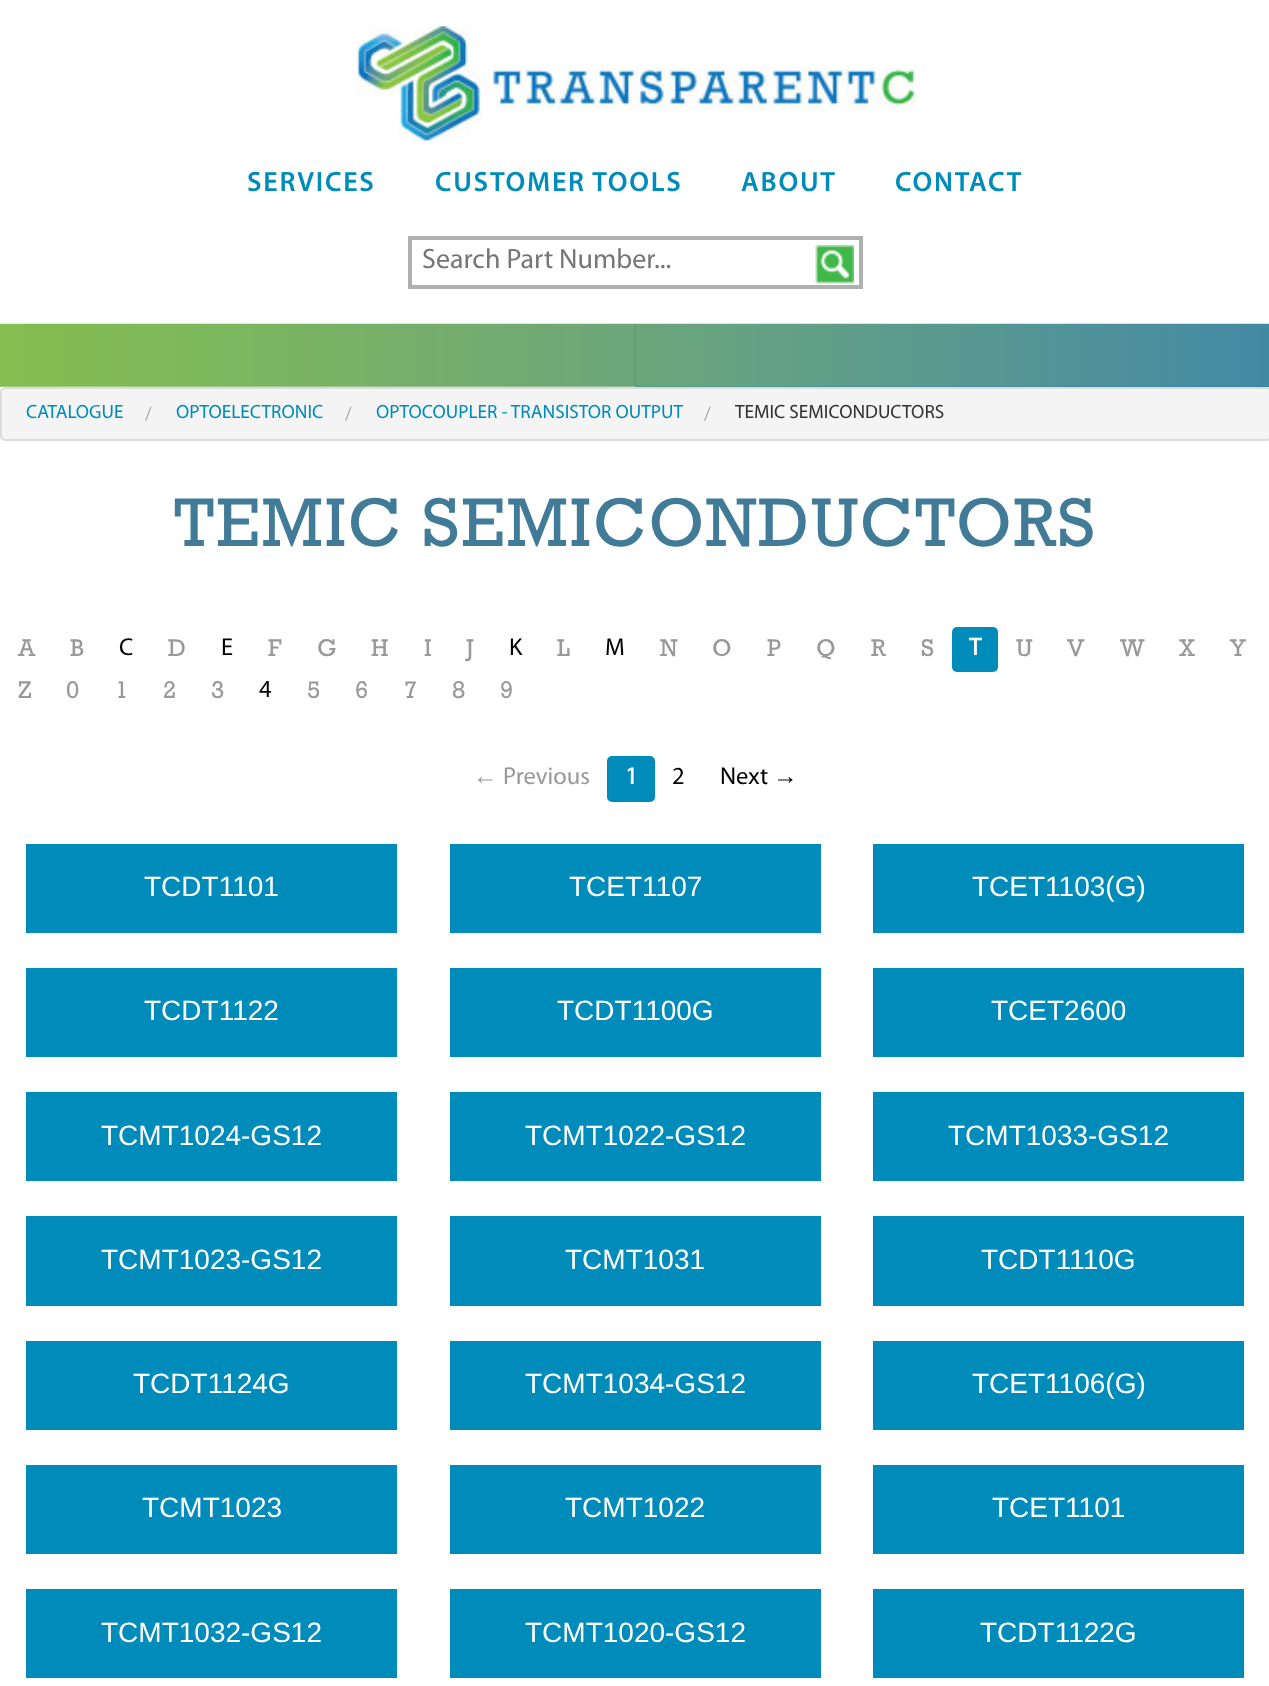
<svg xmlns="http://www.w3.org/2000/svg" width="1269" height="1686">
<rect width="100%" height="100%" fill="#fff"/>
<image x="357" y="26" width="559" height="116" href="media/1.png"/>
<text x="247" y="191" style="font-family:Myriad;font-size:28px;font-weight:600;letter-spacing:1.75px;fill:#008cba">SERVICES</text>
<text x="435" y="191" style="font-family:Myriad;font-size:28px;font-weight:600;letter-spacing:1.75px;fill:#008cba">CUSTOMER TOOLS</text>
<text x="741" y="191" style="font-family:Myriad;font-size:28px;font-weight:600;letter-spacing:1.75px;fill:#008cba">ABOUT</text>
<text x="895" y="191" style="font-family:Myriad;font-size:28px;font-weight:600;letter-spacing:1.75px;fill:#008cba">CONTACT</text>
<rect x="410" y="238" width="451" height="49" fill="none" stroke="#afb0b0" stroke-width="4"/>
<text x="422" y="268" style="font-family:Myriad;font-size:28px;fill:#757575">Search Part Number...</text>
<image x="815" y="245" width="39" height="39" href="media/2.png"/>
<image x="0" y="323" width="636" height="64" href="media/3.png"/>
<rect x="635" y="324" width="634" height="63" fill="#0f75bc"/>
<image x="635" y="323" width="634" height="64" href="media/4.png"/>
<rect x="1" y="388" width="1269" height="52" rx="4" fill="#f4f4f4" stroke="#dcdcdc" stroke-width="2"/>
<text x="26" y="418" style="font-family:Myriad;font-size:19.25px;fill:#008cba">CATALOGUE</text>
<text x="145" y="420" style="font-family:Myriad;font-size:19.25px;fill:#aaa">/</text>
<text x="176" y="418" style="font-family:Myriad;font-size:19.25px;fill:#008cba">OPTOELECTRONIC</text>
<text x="345" y="420" style="font-family:Myriad;font-size:19.25px;fill:#aaa">/</text>
<text x="376" y="418" style="font-family:Myriad;font-size:19.25px;fill:#008cba">OPTOCOUPLER - TRANSISTOR OUTPUT</text>
<text x="704" y="420" style="font-family:Myriad;font-size:19.25px;fill:#aaa">/</text>
<text x="735" y="418" style="font-family:Myriad;font-size:19.25px;fill:#333">TEMIC SEMICONDUCTORS</text>
<text x="174" y="546" style="font-family:Rockwell;font-size:70px;letter-spacing:1.75px;fill:#417b97">TEMIC SEMICONDUCTORS</text>
<text x="18" y="656" style="font-family:Rockwell;font-size:24.5px;fill:#999">A</text>
<text x="70" y="656" style="font-family:Rockwell;font-size:24.5px;fill:#999">B</text>
<text x="119" y="655" style="font-family:Myriad;font-size:24.5px;fill:#000">C</text>
<text x="168" y="656" style="font-family:Rockwell;font-size:24.5px;fill:#999">D</text>
<text x="221" y="655" style="font-family:Myriad;font-size:24.5px;fill:#000">E</text>
<text x="268" y="656" style="font-family:Rockwell;font-size:24.5px;fill:#999">F</text>
<text x="317" y="656" style="font-family:Rockwell;font-size:24.5px;fill:#999">G</text>
<text x="371" y="656" style="font-family:Rockwell;font-size:24.5px;fill:#999">H</text>
<text x="424" y="656" style="font-family:Rockwell;font-size:24.5px;fill:#999">I</text>
<text x="466" y="656" style="font-family:Rockwell;font-size:24.5px;fill:#999">J</text>
<text x="509" y="655" style="font-family:Myriad;font-size:24.5px;fill:#000">K</text>
<text x="557" y="656" style="font-family:Rockwell;font-size:24.5px;fill:#999">L</text>
<text x="605" y="655" style="font-family:Myriad;font-size:24.5px;fill:#000">M</text>
<text x="660" y="656" style="font-family:Rockwell;font-size:24.5px;fill:#999">N</text>
<text x="712" y="656" style="font-family:Rockwell;font-size:24.5px;fill:#999">O</text>
<text x="767" y="656" style="font-family:Rockwell;font-size:24.5px;fill:#999">P</text>
<text x="816" y="656" style="font-family:Rockwell;font-size:24.5px;fill:#999">Q</text>
<text x="871" y="656" style="font-family:Rockwell;font-size:24.5px;fill:#999">R</text>
<text x="921" y="656" style="font-family:Rockwell;font-size:24.5px;fill:#999">S</text>
<rect x="952" y="627" width="46" height="45" rx="5" fill="#008cba"/>
<text x="969" y="655" style="font-family:Myriad;font-size:24.5px;font-weight:bold;fill:#fff">T</text>
<text x="1016" y="656" style="font-family:Rockwell;font-size:24.5px;fill:#999">U</text>
<text x="1067" y="656" style="font-family:Rockwell;font-size:24.5px;fill:#999">V</text>
<text x="1120" y="656" style="font-family:Rockwell;font-size:24.5px;fill:#999">W</text>
<text x="1179" y="656" style="font-family:Rockwell;font-size:24.5px;fill:#999">X</text>
<text x="1230" y="656" style="font-family:Rockwell;font-size:24.5px;fill:#999">Y</text>
<text x="18" y="698" style="font-family:Rockwell;font-size:24.5px;fill:#999">Z</text>
<text x="66" y="698" style="font-family:Rockwell;font-size:24.5px;fill:#999">0</text>
<text x="115" y="698" style="font-family:Rockwell;font-size:24.5px;fill:#999">1</text>
<text x="163" y="698" style="font-family:Rockwell;font-size:24.5px;fill:#999">2</text>
<text x="211" y="698" style="font-family:Rockwell;font-size:24.5px;fill:#999">3</text>
<text x="259" y="697" style="font-family:Myriad;font-size:24.5px;fill:#000">4</text>
<text x="307" y="698" style="font-family:Rockwell;font-size:24.5px;fill:#999">5</text>
<text x="355" y="698" style="font-family:Rockwell;font-size:24.5px;fill:#999">6</text>
<text x="404" y="698" style="font-family:Rockwell;font-size:24.5px;fill:#999">7</text>
<text x="452" y="698" style="font-family:Rockwell;font-size:24.5px;fill:#999">8</text>
<text x="500" y="698" style="font-family:Rockwell;font-size:24.5px;fill:#999">9</text>
<text x="473" y="784" style="font-family:Liberation Sans;font-size:24.5px;fill:#999">←</text>
<text x="503" y="784" style="font-family:Myriad;font-size:24.5px;fill:#999">Previous</text>
<rect x="607" y="756" width="48" height="46" rx="5" fill="#008cba"/>
<text x="625" y="784" style="font-family:Myriad;font-size:24.5px;font-weight:bold;fill:#fff">1</text>
<text x="672" y="784" style="font-family:Myriad;font-size:24.5px;fill:#000">2</text>
<text x="720" y="784" style="font-family:Myriad;font-size:24.5px;fill:#000">Next</text>
<text x="773" y="784" style="font-family:Liberation Sans;font-size:24.5px;fill:#000">→</text>
<rect x="26" y="844" width="371" height="89" fill="#008cba"/>
<text x="144" y="896" style="font-family:Liberation Sans;font-size:28px;fill:#fff">TCDT1101</text>
<rect x="450" y="844" width="371" height="89" fill="#008cba"/>
<text x="569" y="896" style="font-family:Liberation Sans;font-size:28px;fill:#fff">TCET1107</text>
<rect x="873" y="844" width="371" height="89" fill="#008cba"/>
<text x="972" y="896" style="font-family:Liberation Sans;font-size:28px;fill:#fff">TCET1103(G)</text>
<rect x="26" y="968" width="371" height="89" fill="#008cba"/>
<text x="144" y="1020" style="font-family:Liberation Sans;font-size:28px;fill:#fff">TCDT1122</text>
<rect x="450" y="968" width="371" height="89" fill="#008cba"/>
<text x="557" y="1020" style="font-family:Liberation Sans;font-size:28px;fill:#fff">TCDT1100G</text>
<rect x="873" y="968" width="371" height="89" fill="#008cba"/>
<text x="991" y="1020" style="font-family:Liberation Sans;font-size:28px;fill:#fff">TCET2600</text>
<rect x="26" y="1092" width="371" height="89" fill="#008cba"/>
<text x="101" y="1145" style="font-family:Liberation Sans;font-size:28px;fill:#fff">TCMT1024-GS12</text>
<rect x="450" y="1092" width="371" height="89" fill="#008cba"/>
<text x="525" y="1145" style="font-family:Liberation Sans;font-size:28px;fill:#fff">TCMT1022-GS12</text>
<rect x="873" y="1092" width="371" height="89" fill="#008cba"/>
<text x="948" y="1145" style="font-family:Liberation Sans;font-size:28px;fill:#fff">TCMT1033-GS12</text>
<rect x="26" y="1216" width="371" height="90" fill="#008cba"/>
<text x="101" y="1269" style="font-family:Liberation Sans;font-size:28px;fill:#fff">TCMT1023-GS12</text>
<rect x="450" y="1216" width="371" height="90" fill="#008cba"/>
<text x="565" y="1269" style="font-family:Liberation Sans;font-size:28px;fill:#fff">TCMT1031</text>
<rect x="873" y="1216" width="371" height="90" fill="#008cba"/>
<text x="981" y="1269" style="font-family:Liberation Sans;font-size:28px;fill:#fff">TCDT1110G</text>
<rect x="26" y="1341" width="371" height="89" fill="#008cba"/>
<text x="133" y="1393" style="font-family:Liberation Sans;font-size:28px;fill:#fff">TCDT1124G</text>
<rect x="450" y="1341" width="371" height="89" fill="#008cba"/>
<text x="525" y="1393" style="font-family:Liberation Sans;font-size:28px;fill:#fff">TCMT1034-GS12</text>
<rect x="873" y="1341" width="371" height="89" fill="#008cba"/>
<text x="972" y="1393" style="font-family:Liberation Sans;font-size:28px;fill:#fff">TCET1106(G)</text>
<rect x="26" y="1465" width="371" height="89" fill="#008cba"/>
<text x="142" y="1517" style="font-family:Liberation Sans;font-size:28px;fill:#fff">TCMT1023</text>
<rect x="450" y="1465" width="371" height="89" fill="#008cba"/>
<text x="565" y="1517" style="font-family:Liberation Sans;font-size:28px;fill:#fff">TCMT1022</text>
<rect x="873" y="1465" width="371" height="89" fill="#008cba"/>
<text x="992" y="1517" style="font-family:Liberation Sans;font-size:28px;fill:#fff">TCET1101</text>
<rect x="26" y="1589" width="371" height="89" fill="#008cba"/>
<text x="101" y="1642" style="font-family:Liberation Sans;font-size:28px;fill:#fff">TCMT1032-GS12</text>
<rect x="450" y="1589" width="371" height="89" fill="#008cba"/>
<text x="525" y="1642" style="font-family:Liberation Sans;font-size:28px;fill:#fff">TCMT1020-GS12</text>
<rect x="873" y="1589" width="371" height="89" fill="#008cba"/>
<text x="980" y="1642" style="font-family:Liberation Sans;font-size:28px;fill:#fff">TCDT1122G</text>
</svg>
